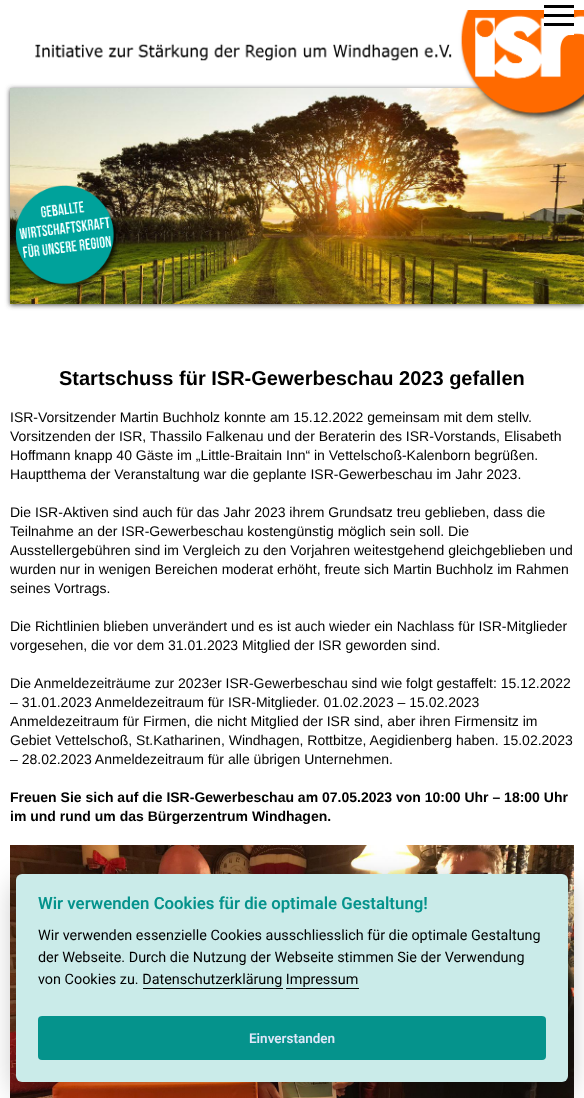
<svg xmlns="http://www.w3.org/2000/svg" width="584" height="1098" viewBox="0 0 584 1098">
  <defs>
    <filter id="blur1" x="-50%" y="-200%" width="200%" height="500%"><feGaussianBlur stdDeviation="2.5"/></filter>
    <filter id="blur2" x="-50%" y="-200%" width="200%" height="500%"><feGaussianBlur stdDeviation="15"/></filter>
  </defs>
  <rect width="100%" height="100%" fill="#ffffff"/>
  <rect x="10" y="89" width="574" height="216" fill="#4a4a4a" filter="url(#blur1)"/>
  <image x="10" y="88" width="574" height="216" href="img2.png"/>
  <image x="35" y="10" width="549" height="111" href="img1.png"/>
  <rect x="544" y="10" width="30" height="25" fill="#ffffff"/>
  <rect x="544" y="5" width="30" height="3" fill="#000000"/>
  <rect x="544" y="14" width="30" height="3" fill="#000000"/>
  <rect x="544" y="23" width="30" height="3" fill="#000000"/>
  <image x="15" y="185" width="104" height="105" href="img3.png"/>
  <text x="59" y="385" font-family="Liberation Sans" font-size="20" font-weight="bold" fill="#000000">Startschuss für ISR-Gewerbeschau 2023 gefallen</text>
  <text x="10" y="422" font-family="Liberation Sans" font-size="14" fill="#000000">ISR-Vorsitzender Martin Buchholz konnte am 15.12.2022 gemeinsam mit dem stellv.</text>
  <text x="10" y="441" font-family="Liberation Sans" font-size="14" fill="#000000">Vorsitzenden der ISR, Thassilo Falkenau und der Beraterin des ISR-Vorstands, Elisabeth</text>
  <text x="10" y="460" font-family="Liberation Sans" font-size="14" fill="#000000">Hoffmann knapp 40 Gäste im „Little-Braitain Inn“ in Vettelschoß-Kalenborn begrüßen.</text>
  <text x="10" y="479" font-family="Liberation Sans" font-size="14" fill="#000000">Hauptthema der Veranstaltung war die geplante ISR-Gewerbeschau im Jahr 2023.</text>
  <text x="10" y="517" font-family="Liberation Sans" font-size="14" fill="#000000">Die ISR-Aktiven sind auch für das Jahr 2023 ihrem Grundsatz treu geblieben, dass die</text>
  <text x="10" y="536" font-family="Liberation Sans" font-size="14" fill="#000000">Teilnahme an der ISR-Gewerbeschau kostengünstig möglich sein soll. Die</text>
  <text x="10" y="555" font-family="Liberation Sans" font-size="14" fill="#000000">Ausstellergebühren sind im Vergleich zu den Vorjahren weitestgehend gleichgeblieben und</text>
  <text x="10" y="574" font-family="Liberation Sans" font-size="14" fill="#000000">wurden nur in wenigen Bereichen moderat erhöht, freute sich Martin Buchholz im Rahmen</text>
  <text x="10" y="593" font-family="Liberation Sans" font-size="14" fill="#000000">seines Vortrags.</text>
  <text x="10" y="631" font-family="Liberation Sans" font-size="14" fill="#000000">Die Richtlinien blieben unverändert und es ist auch wieder ein Nachlass für ISR-Mitglieder</text>
  <text x="10" y="650" font-family="Liberation Sans" font-size="14" fill="#000000">vorgesehen, die vor dem 31.01.2023 Mitglied der ISR geworden sind.</text>
  <text x="10" y="688" font-family="Liberation Sans" font-size="14" fill="#000000">Die Anmeldezeiträume zur 2023er ISR-Gewerbeschau sind wie folgt gestaffelt: 15.12.2022</text>
  <text x="10" y="707" font-family="Liberation Sans" font-size="14" fill="#000000">– 31.01.2023 Anmeldezeitraum für ISR-Mitglieder. 01.02.2023 – 15.02.2023</text>
  <text x="10" y="726" font-family="Liberation Sans" font-size="14" fill="#000000">Anmeldezeitraum für Firmen, die nicht Mitglied der ISR sind, aber ihren Firmensitz im</text>
  <text x="10" y="745" font-family="Liberation Sans" font-size="14" fill="#000000">Gebiet Vettelschoß, St.Katharinen, Windhagen, Rottbitze, Aegidienberg haben. 15.02.2023</text>
  <text x="10" y="764" font-family="Liberation Sans" font-size="14" fill="#000000">– 28.02.2023 Anmeldezeitraum für alle übrigen Unternehmen.</text>
  <text x="10" y="802" font-family="Liberation Sans" font-size="14" font-weight="bold" fill="#000000">Freuen Sie sich auf die ISR-Gewerbeschau am 07.05.2023 von 10:00 Uhr – 18:00 Uhr</text>
  <text x="10" y="821" font-family="Liberation Sans" font-size="14" font-weight="bold" fill="#000000">im und rund um das Bürgerzentrum Windhagen.</text>
  <image x="10" y="845" width="564" height="253" href="img4.png"/>
  <rect x="16" y="884" width="552" height="208" rx="6" fill="#020203" fill-opacity="0.28" filter="url(#blur2)"/>
  <rect x="16" y="874" width="552" height="208" rx="6" fill="#caebe9"/>
  <text x="38" y="909" font-family="Roboto" font-size="16.8" font-weight="600" fill="#05938c">Wir verwenden Cookies für die optimale Gestaltung!</text>
  <text x="38" y="940" font-family="Roboto" font-size="14.4" fill="#000000">Wir verwenden essenzielle Cookies ausschliesslich für die optimale Gestaltung</text>
  <text x="38" y="962" font-family="Roboto" font-size="14.4" fill="#000000">der Webseite. Durch die Nutzung der Webseite stimmen Sie der Verwendung</text>
  <text x="38" y="984" font-family="Roboto" font-size="14.4" fill="#000000">von Cookies zu. Datenschutzerklärung Impressum</text>
  <rect x="143" y="988" width="140" height="1" fill="#000000"/>
  <rect x="286" y="988" width="73" height="1" fill="#000000"/>
  <rect x="38" y="1016" width="508" height="44" rx="4" fill="#05938c"/>
  <text x="249" y="1043" font-family="Roboto" font-size="13.5" font-weight="600" fill="#dfe7f9">Einverstanden</text>
</svg>
